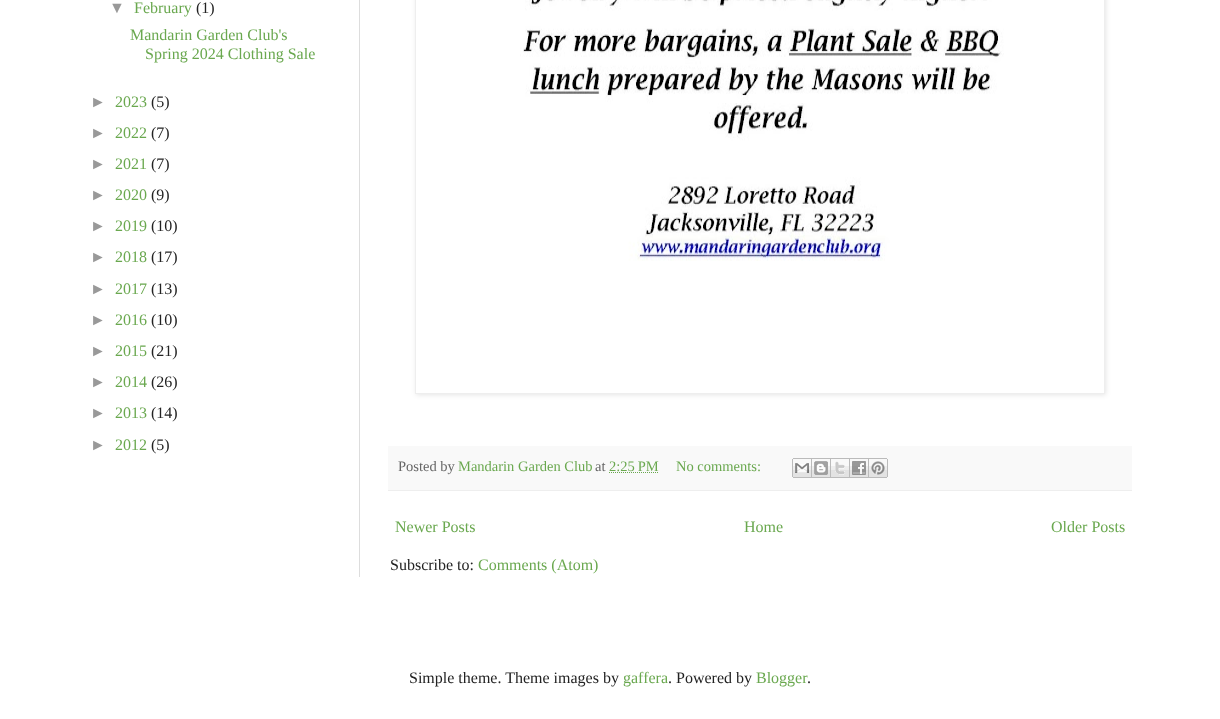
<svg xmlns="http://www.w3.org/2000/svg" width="1220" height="719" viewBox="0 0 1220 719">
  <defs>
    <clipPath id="clip1"><path d="M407 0H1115V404H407ZM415-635H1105V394H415Z" clip-rule="evenodd"/></clipPath>
    <filter id="blur1" x="-50%" y="-200%" width="200%" height="500%"><feGaussianBlur stdDeviation="2.5"/></filter>
  </defs>
  <rect width="100%" height="100%" fill="#ffffff"/>
  <rect x="359" y="0" width="1" height="577" fill="#dddddd"/>
  <text x="109" y="13" font-family="Liberation Sans" font-size="16" fill="#999999">▼</text>
  <text x="134" y="13" font-family="Liberation Serif" font-size="16" fill="#6aa84f">February</text>
  <text x="196" y="13" font-family="Liberation Serif" font-size="16" fill="#222222">(1)</text>
  <text x="130" y="40" font-family="Liberation Serif" font-size="16" fill="#6aa84f">Mandarin Garden Club's</text>
  <text x="145" y="59" font-family="Liberation Serif" font-size="16" fill="#6aa84f">Spring 2024 Clothing Sale</text>
  <text x="90" y="107" font-family="Liberation Sans" font-size="16" fill="#999999">►</text>
  <text x="115" y="107" font-family="Liberation Serif" font-size="16" fill="#6aa84f">2023</text>
  <text x="151" y="107" font-family="Liberation Serif" font-size="16" fill="#222222">(5)</text>
  <text x="90" y="138" font-family="Liberation Sans" font-size="16" fill="#999999">►</text>
  <text x="115" y="138" font-family="Liberation Serif" font-size="16" fill="#6aa84f">2022</text>
  <text x="151" y="138" font-family="Liberation Serif" font-size="16" fill="#222222">(7)</text>
  <text x="90" y="169" font-family="Liberation Sans" font-size="16" fill="#999999">►</text>
  <text x="115" y="169" font-family="Liberation Serif" font-size="16" fill="#6aa84f">2021</text>
  <text x="151" y="169" font-family="Liberation Serif" font-size="16" fill="#222222">(7)</text>
  <text x="90" y="200" font-family="Liberation Sans" font-size="16" fill="#999999">►</text>
  <text x="115" y="200" font-family="Liberation Serif" font-size="16" fill="#6aa84f">2020</text>
  <text x="151" y="200" font-family="Liberation Serif" font-size="16" fill="#222222">(9)</text>
  <text x="90" y="231" font-family="Liberation Sans" font-size="16" fill="#999999">►</text>
  <text x="115" y="231" font-family="Liberation Serif" font-size="16" fill="#6aa84f">2019</text>
  <text x="151" y="231" font-family="Liberation Serif" font-size="16" fill="#222222">(10)</text>
  <text x="90" y="262" font-family="Liberation Sans" font-size="16" fill="#999999">►</text>
  <text x="115" y="262" font-family="Liberation Serif" font-size="16" fill="#6aa84f">2018</text>
  <text x="151" y="262" font-family="Liberation Serif" font-size="16" fill="#222222">(17)</text>
  <text x="90" y="294" font-family="Liberation Sans" font-size="16" fill="#999999">►</text>
  <text x="115" y="294" font-family="Liberation Serif" font-size="16" fill="#6aa84f">2017</text>
  <text x="151" y="294" font-family="Liberation Serif" font-size="16" fill="#222222">(13)</text>
  <text x="90" y="325" font-family="Liberation Sans" font-size="16" fill="#999999">►</text>
  <text x="115" y="325" font-family="Liberation Serif" font-size="16" fill="#6aa84f">2016</text>
  <text x="151" y="325" font-family="Liberation Serif" font-size="16" fill="#222222">(10)</text>
  <text x="90" y="356" font-family="Liberation Sans" font-size="16" fill="#999999">►</text>
  <text x="115" y="356" font-family="Liberation Serif" font-size="16" fill="#6aa84f">2015</text>
  <text x="151" y="356" font-family="Liberation Serif" font-size="16" fill="#222222">(21)</text>
  <text x="90" y="387" font-family="Liberation Sans" font-size="16" fill="#999999">►</text>
  <text x="115" y="387" font-family="Liberation Serif" font-size="16" fill="#6aa84f">2014</text>
  <text x="151" y="387" font-family="Liberation Serif" font-size="16" fill="#222222">(26)</text>
  <text x="90" y="418" font-family="Liberation Sans" font-size="16" fill="#999999">►</text>
  <text x="115" y="418" font-family="Liberation Serif" font-size="16" fill="#6aa84f">2013</text>
  <text x="151" y="418" font-family="Liberation Serif" font-size="16" fill="#222222">(14)</text>
  <text x="90" y="450" font-family="Liberation Sans" font-size="16" fill="#999999">►</text>
  <text x="115" y="450" font-family="Liberation Serif" font-size="16" fill="#6aa84f">2012</text>
  <text x="151" y="450" font-family="Liberation Serif" font-size="16" fill="#222222">(5)</text>
  <g clip-path="url(#clip1)">
    <rect x="416" y="-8" width="690" height="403" fill="#000000" fill-opacity="0.1" filter="url(#blur1)"/>
  </g>
  <rect x="415.5" y="-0.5" width="689" height="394" fill="none" stroke="#eeeeee"/>
  <image x="520" y="0" width="484" height="261" href="img1.png"/>
  <rect x="388" y="446" width="744" height="44" fill="#f9f9f9"/>
  <rect x="388" y="490" width="744" height="1" fill="#eeeeee"/>
  <text x="398" y="471" font-family="Liberation Serif" font-size="14.5" fill="#666666">Posted by</text>
  <text x="458" y="471" font-family="Liberation Serif" font-size="14.5" fill="#6aa84f">Mandarin Garden Club</text>
  <text x="595" y="471" font-family="Liberation Serif" font-size="14.5" fill="#666666">at</text>
  <text x="609" y="471" font-family="Liberation Serif" font-size="14.5" fill="#6aa84f">2:25 PM</text>
  <path d="M609 472.5H658.5" fill="none" stroke="#6aa84f" stroke-dasharray="1 1"/>
  <text x="676" y="471" font-family="Liberation Serif" font-size="14.5" fill="#6aa84f">No comments:</text>
  <image x="792" y="458" width="20" height="20" href="img2.png"/>
  <image x="812" y="458" width="19" height="20" href="img3.png"/>
  <image x="831" y="458" width="19" height="20" href="img4.png"/>
  <image x="850" y="458" width="19" height="20" href="img5.png"/>
  <image x="869" y="458" width="19" height="20" href="img6.png"/>
  <text x="395" y="532" font-family="Liberation Serif" font-size="16" fill="#6aa84f">Newer Posts</text>
  <text x="744" y="532" font-family="Liberation Serif" font-size="16" fill="#6aa84f">Home</text>
  <text x="1051" y="532" font-family="Liberation Serif" font-size="16" fill="#6aa84f">Older Posts</text>
  <text x="390" y="570" font-family="Liberation Serif" font-size="16" fill="#222222">Subscribe to:</text>
  <text x="478" y="570" font-family="Liberation Serif" font-size="16" fill="#6aa84f">Comments (Atom)</text>
  <text x="409" y="683" font-family="Liberation Serif" font-size="16" fill="#222222">Simple theme. Theme images by</text>
  <text x="623" y="683" font-family="Liberation Serif" font-size="16" fill="#6aa84f">gaffera</text>
  <text x="668" y="683" font-family="Liberation Serif" font-size="16" fill="#222222">. Powered by</text>
  <text x="756" y="683" font-family="Liberation Serif" font-size="16" fill="#6aa84f">Blogger</text>
  <text x="807" y="683" font-family="Liberation Serif" font-size="16" fill="#222222">.</text>
</svg>
